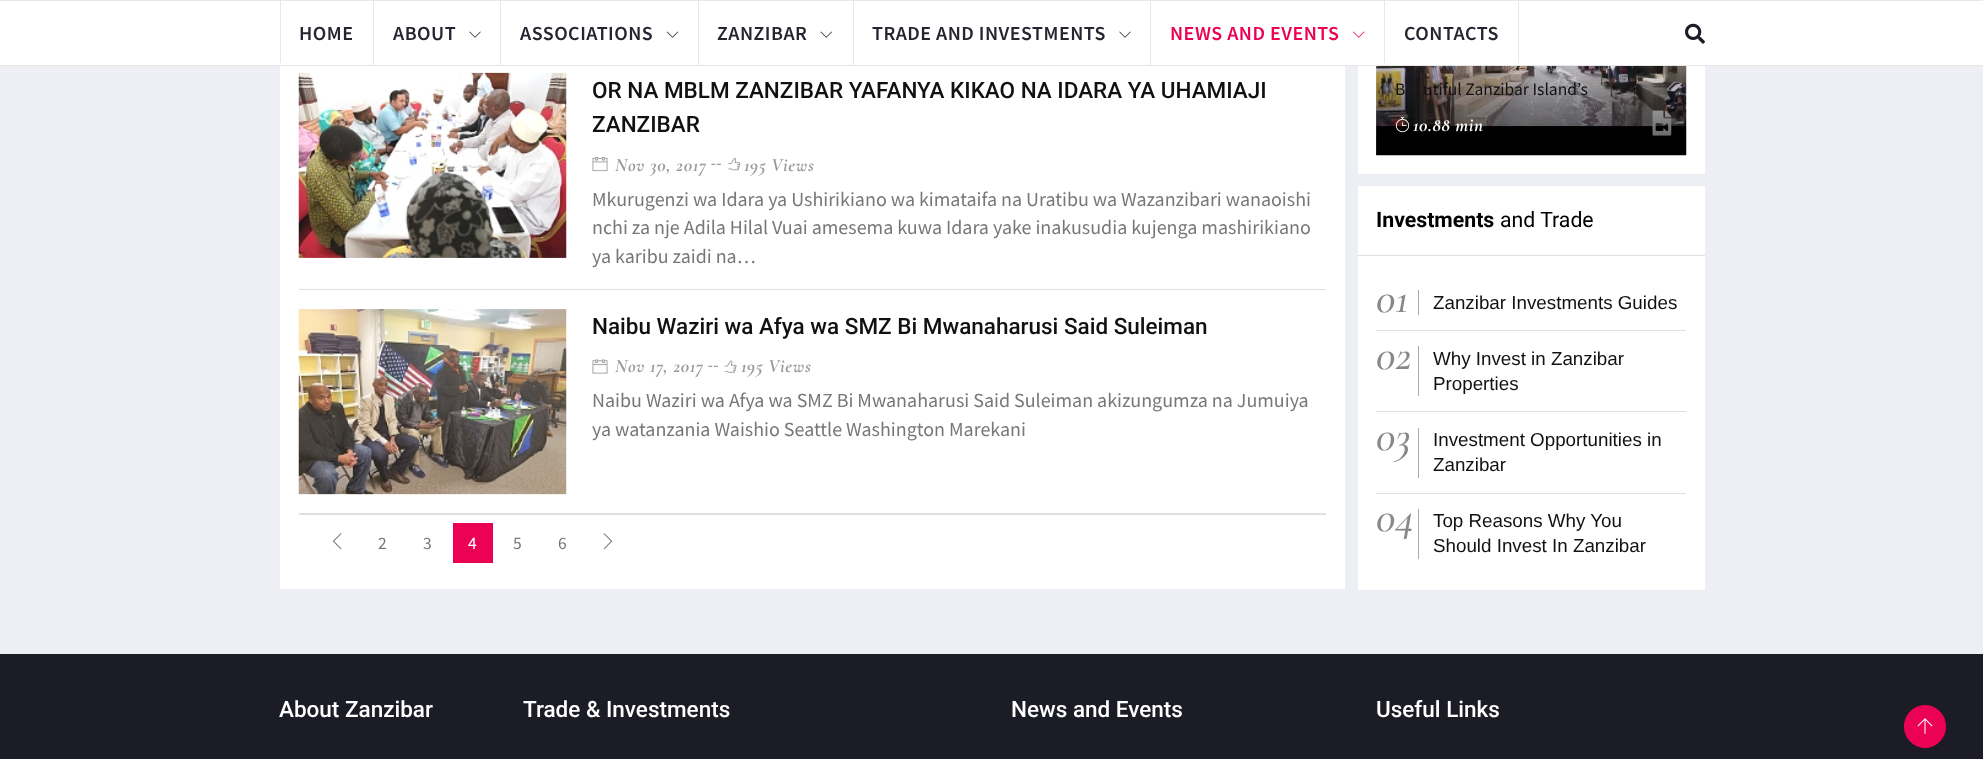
<svg xmlns="http://www.w3.org/2000/svg" width="1983" height="759" viewBox="0 0 1983 759">
  <defs>
    <linearGradient id="g1" gradientUnits="userSpaceOnUse" x1="1531" y1="57" x2="1531" y2="155"><stop offset="0" stop-color="#000000" stop-opacity="0"/><stop offset="0.5" stop-color="#000000" stop-opacity="0.4"/><stop offset="1" stop-color="#000000" stop-opacity="0.7"/></linearGradient>
  </defs>
  <rect width="100%" height="100%" fill="#edeff4"/>
  <rect x="0" y="1" width="1983" height="64" fill="#ffffff"/>
  <rect x="0" y="0" width="1983" height="1" fill="#e7e7e7"/>
  <rect x="0" y="65" width="1983" height="1" fill="#e7e7e7"/>
  <rect x="280" y="1" width="1" height="62" fill="#e7e7e7"/>
  <text x="299" y="40" font-family="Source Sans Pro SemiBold" font-size="20" font-weight="600" letter-spacing="0.5" fill="#24252f">HOME</text>
  <rect x="373" y="1" width="1" height="64" fill="#e7e7e7"/>
  <text x="393" y="40" font-family="Source Sans Pro SemiBold" font-size="20" font-weight="600" letter-spacing="0.5" fill="#24252f">ABOUT</text>
  <image x="469" y="31" width="12" height="7" href="img1.png"/>
  <rect x="500" y="1" width="1" height="64" fill="#e7e7e7"/>
  <text x="520" y="40" font-family="Source Sans Pro SemiBold" font-size="20" font-weight="600" letter-spacing="0.5" fill="#24252f">ASSOCIATIONS</text>
  <image x="666" y="31" width="13" height="7" href="img2.png"/>
  <rect x="698" y="1" width="1" height="64" fill="#e7e7e7"/>
  <text x="717" y="40" font-family="Source Sans Pro SemiBold" font-size="20" font-weight="600" letter-spacing="0.5" fill="#24252f">ZANZIBAR</text>
  <image x="820" y="31" width="12" height="7" href="img3.png"/>
  <rect x="853" y="1" width="1" height="64" fill="#e7e7e7"/>
  <text x="872" y="40" font-family="Source Sans Pro SemiBold" font-size="20" font-weight="600" letter-spacing="0.5" fill="#24252f">TRADE AND INVESTMENTS</text>
  <image x="1119" y="31" width="12" height="7" href="img1.png"/>
  <rect x="1150" y="1" width="1" height="64" fill="#e7e7e7"/>
  <text x="1170" y="40" font-family="Source Sans Pro SemiBold" font-size="20" font-weight="600" letter-spacing="0.5" fill="#eb0254">NEWS AND EVENTS</text>
  <image x="1353" y="31" width="12" height="7" href="img4.png"/>
  <rect x="1518" y="1" width="1" height="62" fill="#e7e7e7"/>
  <rect x="1384" y="1" width="1" height="62" fill="#e7e7e7"/>
  <text x="1404" y="40" font-family="Source Sans Pro SemiBold" font-size="20" font-weight="600" letter-spacing="0.5" fill="#24252f">CONTACTS</text>
  <image x="1685" y="23" width="20" height="21" href="img5.png"/>
  <rect x="280" y="66" width="1065" height="523" fill="#ffffff"/>
  <rect x="299" y="289" width="1027" height="1" fill="#e0e0e0"/>
  <image x="298" y="72" width="269" height="186" href="img6.png"/>
  <text x="592" y="98" font-family="Roboto" font-size="22.5" font-weight="500" fill="#111111">OR NA MBLM ZANZIBAR YAFANYA KIKAO NA IDARA YA UHAMIAJI</text>
  <text x="592" y="132" font-family="Roboto" font-size="22.5" font-weight="500" fill="#111111">ZANZIBAR</text>
  <image x="592" y="157" width="16" height="15" href="img7.png"/>
  <text x="615" y="171" font-family="Cormorant Garamond" font-size="18.75" font-weight="bold" font-style="italic" letter-spacing="0.6" fill="#9a9a9a">Nov 30, 2017</text>
  <text x="711" y="168" font-family="Liberation Serif" font-size="15" font-weight="bold" font-style="italic" letter-spacing="0.6" fill="#9a9a9a">--</text>
  <image x="728" y="158" width="13" height="13" href="img8.png"/>
  <text x="744" y="171" font-family="Cormorant Garamond" font-size="18.75" font-weight="bold" font-style="italic" letter-spacing="0.6" fill="#9a9a9a">195 Views</text>
  <text x="592" y="206" font-family="Source Sans Pro" font-size="20" fill="#777777">Mkurugenzi wa Idara ya Ushirikiano wa kimataifa na Uratibu wa Wazanzibari wanaoishi</text>
  <text x="592" y="234" font-family="Source Sans Pro" font-size="20" fill="#777777">nchi za nje Adila Hilal Vuai amesema kuwa Idara yake inakusudia kujenga mashirikiano</text>
  <text x="592" y="263" font-family="Source Sans Pro" font-size="20" fill="#777777">ya karibu zaidi na…</text>
  <rect x="299" y="513" width="1027" height="2" fill="#e0e0e0"/>
  <image x="298" y="309" width="269" height="186" href="img9.png"/>
  <text x="592" y="334" font-family="Roboto" font-size="22.5" font-weight="500" fill="#111111">Naibu Waziri wa Afya wa SMZ Bi Mwanaharusi Said Suleiman</text>
  <image x="592" y="359" width="16" height="15" href="img10.png"/>
  <text x="615" y="372" font-family="Cormorant Garamond" font-size="18.75" font-weight="bold" font-style="italic" letter-spacing="0.6" fill="#9a9a9a">Nov 17, 2017</text>
  <text x="708" y="370" font-family="Liberation Serif" font-size="15" font-weight="bold" font-style="italic" letter-spacing="0.6" fill="#9a9a9a">--</text>
  <image x="724" y="360" width="13" height="13" href="img11.png"/>
  <text x="741" y="372" font-family="Cormorant Garamond" font-size="18.75" font-weight="bold" font-style="italic" letter-spacing="0.6" fill="#9a9a9a">195 Views</text>
  <text x="592" y="407" font-family="Source Sans Pro" font-size="20" fill="#777777">Naibu Waziri wa Afya wa SMZ Bi Mwanaharusi Said Suleiman akizungumza na Jumuiya</text>
  <text x="592" y="436" font-family="Source Sans Pro" font-size="20" fill="#777777">ya watanzania Waishio Seattle Washington Marekani</text>
  <image x="332" y="533" width="10" height="17" href="img12.png"/>
  <text x="378" y="549" font-family="Source Sans Pro" font-size="17.5" fill="#777777">2</text>
  <text x="423" y="549" font-family="Source Sans Pro" font-size="17.5" fill="#777777">3</text>
  <rect x="453" y="523" width="40" height="40" fill="#eb0254"/>
  <text x="468" y="549" font-family="Source Sans Pro" font-size="17.5" fill="#ffffff">4</text>
  <text x="513" y="549" font-family="Source Sans Pro" font-size="17.5" fill="#777777">5</text>
  <text x="558" y="549" font-family="Source Sans Pro" font-size="17.5" fill="#777777">6</text>
  <image x="603" y="533" width="10" height="17" href="img13.png"/>
  <rect x="1358" y="66" width="347" height="108" fill="#ffffff"/>
  <image x="1376" y="66" width="311" height="90" href="img14.png"/>
  <image x="1652" y="110" width="20" height="26" href="img16.png"/>
  <rect x="1376" y="66" width="310" height="89" fill="url(#g1)"/>
  <text x="1395" y="95" font-family="Source Sans Pro" font-size="17.5" fill="#111111">B</text>
  <text x="1423" y="95" font-family="Source Sans Pro" font-size="17.5" fill="#111111">utiful Zanzibar Island’s</text>
  <image x="1395" y="117" width="15" height="16" href="img15.png"/>
  <text x="1413" y="131" font-family="Cormorant Garamond" font-size="18.75" font-weight="bold" font-style="italic" letter-spacing="0.6" fill="#ffffff">10.88 min</text>
  <rect x="1358" y="186" width="347" height="404" fill="#ffffff"/>
  <rect x="1358" y="255" width="347" height="1" fill="#e0e0e0"/>
  <text x="1376" y="227" font-family="Roboto" font-size="21.25" font-weight="bold" fill="#000000">Investments</text>
  <text x="1500" y="227" font-family="Roboto" font-size="21.25" fill="#000000">and Trade</text>
  <rect x="1376" y="330" width="310" height="1" fill="#e0e0e0"/>
  <text x="1376" y="312" font-family="Cormorant Garamond" font-size="44" font-weight="500" font-style="italic" fill="#888888">01</text>
  <rect x="1418" y="290" width="1" height="25" fill="#aaaaaa"/>
  <text x="1433" y="309" font-family="Liberation Sans" font-size="18.8" fill="#111111">Zanzibar Investments Guides</text>
  <rect x="1376" y="411" width="310" height="1" fill="#e0e0e0"/>
  <text x="1376" y="369" font-family="Cormorant Garamond" font-size="44" font-weight="500" font-style="italic" fill="#888888">02</text>
  <rect x="1418" y="346" width="1" height="50" fill="#aaaaaa"/>
  <text x="1433" y="365" font-family="Liberation Sans" font-size="18.8" fill="#111111">Why Invest in Zanzibar</text>
  <text x="1433" y="390" font-family="Liberation Sans" font-size="18.8" fill="#111111">Properties</text>
  <rect x="1376" y="493" width="310" height="1" fill="#e0e0e0"/>
  <text x="1376" y="450" font-family="Cormorant Garamond" font-size="44" font-weight="500" font-style="italic" fill="#888888">03</text>
  <rect x="1418" y="428" width="1" height="50" fill="#aaaaaa"/>
  <text x="1433" y="446" font-family="Liberation Sans" font-size="18.8" fill="#111111">Investment Opportunities in</text>
  <text x="1433" y="471" font-family="Liberation Sans" font-size="18.8" fill="#111111">Zanzibar</text>
  <text x="1376" y="531" font-family="Cormorant Garamond" font-size="44" font-weight="500" font-style="italic" fill="#888888">04</text>
  <rect x="1418" y="509" width="1" height="50" fill="#aaaaaa"/>
  <text x="1433" y="527" font-family="Liberation Sans" font-size="18.8" fill="#111111">Top Reasons Why You</text>
  <text x="1433" y="552" font-family="Liberation Sans" font-size="18.8" fill="#111111">Should Invest In Zanzibar</text>
  <rect x="0" y="654" width="1983" height="105" fill="#1b1c26"/>
  <text x="279" y="717" font-family="Roboto" font-size="22.5" font-weight="500" fill="#ffffff">About Zanzibar</text>
  <text x="523" y="717" font-family="Roboto" font-size="22.5" font-weight="500" fill="#ffffff">Trade &amp; Investments</text>
  <text x="1011" y="717" font-family="Roboto" font-size="22.5" font-weight="500" fill="#ffffff">News and Events</text>
  <text x="1376" y="717" font-family="Roboto" font-size="22.5" font-weight="500" fill="#ffffff">Useful Links</text>
  <rect x="1904.5" y="705.5" width="41" height="42" rx="20.5" fill="#eb0254" stroke="#eb0254"/>
  <image x="1917" y="718" width="16" height="16" href="img17.png"/>
</svg>
